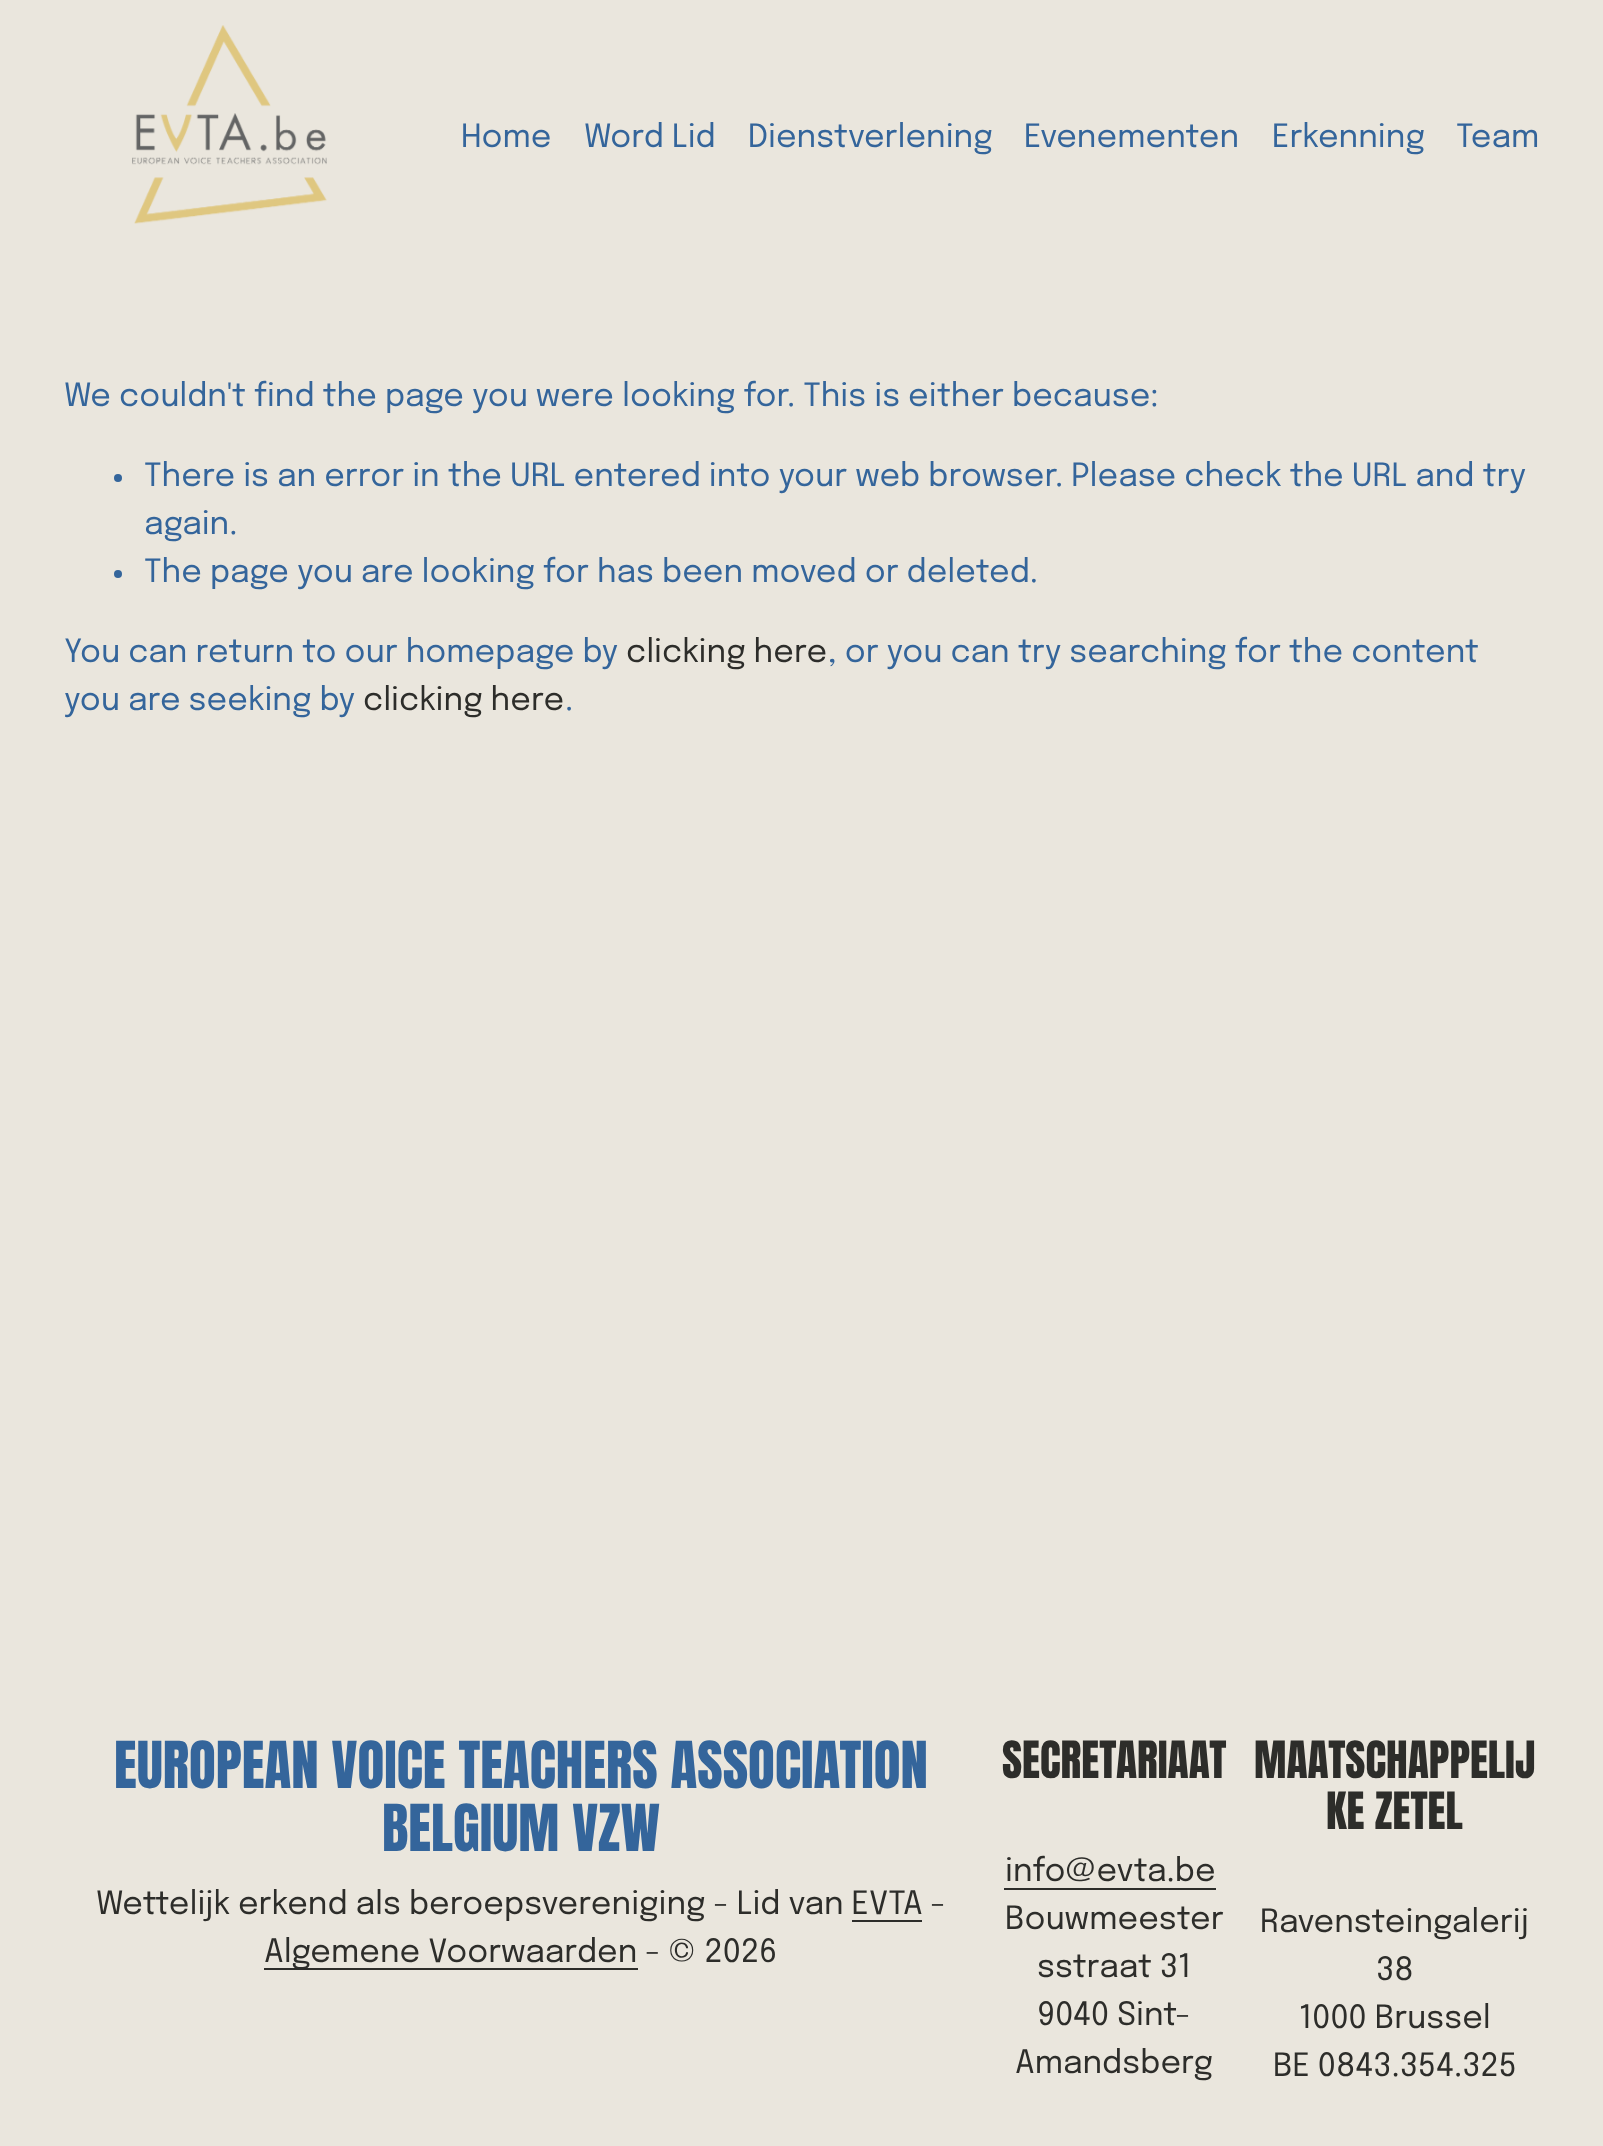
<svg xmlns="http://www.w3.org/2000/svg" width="1603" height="2146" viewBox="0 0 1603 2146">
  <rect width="100%" height="100%" fill="#eae6dd"/>
  <image x="132" y="25" width="195" height="199" href="img1.png"/>
  <text x="461" y="147" font-family="Epilogue" font-size="32" fill="#34659b">Home</text>
  <text x="584" y="147" font-family="Epilogue" font-size="32" fill="#34659b">Word Lid</text>
  <text x="748" y="147" font-family="Epilogue" font-size="32" fill="#34659b">Dienstverlening</text>
  <text x="1024" y="147" font-family="Epilogue" font-size="32" fill="#34659b">Evenementen</text>
  <text x="1272" y="147" font-family="Epilogue" font-size="32" fill="#34659b">Erkenning</text>
  <text x="1456" y="147" font-family="Epilogue" font-size="32" fill="#34659b">Team</text>
  <text x="64" y="406" font-family="Epilogue" font-size="32" fill="#34659b">We couldn't find the page you were looking for. This is either because:</text>
  <circle cx="118" cy="478" r="4" fill="#34659b"/>
  <text x="144" y="486" font-family="Epilogue" font-size="32" fill="#34659b">There is an error in the URL entered into your web browser. Please check the URL and try</text>
  <text x="144" y="534" font-family="Epilogue" font-size="32" fill="#34659b">again.</text>
  <circle cx="118" cy="574" r="4" fill="#34659b"/>
  <text x="144" y="582" font-family="Epilogue" font-size="32" fill="#34659b">The page you are looking for has been moved or deleted.</text>
  <text x="64" y="662" font-family="Epilogue" font-size="32" fill="#34659b">You can return to our homepage by</text>
  <text x="626" y="662" font-family="Epilogue" font-size="32" fill="#2d2d2a">clicking here</text>
  <text x="828" y="662" font-family="Epilogue" font-size="32" fill="#34659b">, or you can try searching for the content</text>
  <text x="64" y="710" font-family="Epilogue" font-size="32" fill="#34659b">you are seeking by</text>
  <text x="363" y="710" font-family="Epilogue" font-size="32" fill="#2d2d2a">clicking here</text>
  <text x="565" y="710" font-family="Epilogue" font-size="32" fill="#34659b">.</text>
  <text x="114" y="1788" font-family="Anton" font-size="55.1" fill="#34659b">EUROPEAN VOICE TEACHERS ASSOCIATION</text>
  <text x="382" y="1851" font-family="Anton" font-size="55.1" fill="#34659b">BELGIUM VZW</text>
  <text x="1002" y="1778" font-family="Anton" font-size="43.5" fill="#2d2d2a">SECRETARIAAT</text>
  <text x="1005" y="1881" font-family="Epilogue" font-size="32" fill="#2d2d2a">info@evta.be</text>
  <rect x="1004" y="1888" width="212" height="2" fill="#2d2d2a"/>
  <text x="1005" y="1929" font-family="Epilogue" font-size="32" fill="#2d2d2a">Bouwmeester</text>
  <text x="1037" y="1977" font-family="Epilogue" font-size="32" fill="#2d2d2a">sstraat 31</text>
  <text x="1037" y="2025" font-family="Epilogue" font-size="32" fill="#2d2d2a">9040 Sint-</text>
  <text x="1015" y="2073" font-family="Epilogue" font-size="32" fill="#2d2d2a">Amandsberg</text>
  <text x="1254" y="1778" font-family="Anton" font-size="43.5" fill="#2d2d2a">MAATSCHAPPELIJ</text>
  <text x="1326" y="1829" font-family="Anton" font-size="43.5" fill="#2d2d2a">KE ZETEL</text>
  <text x="1260" y="1932" font-family="Epilogue" font-size="32" fill="#2d2d2a">Ravensteingalerij</text>
  <text x="1376" y="1980" font-family="Epilogue" font-size="32" fill="#2d2d2a">38</text>
  <text x="1299" y="2028" font-family="Epilogue" font-size="32" fill="#2d2d2a">1000 Brussel</text>
  <text x="1273" y="2076" font-family="Epilogue" font-size="32" fill="#2d2d2a">BE 0843.354.325</text>
  <text x="96" y="1914" font-family="Epilogue" font-size="32" fill="#2d2d2a">Wettelijk erkend als beroepsvereniging - Lid van EVTA -</text>
  <rect x="852" y="1920" width="70" height="2" fill="#2d2d2a"/>
  <rect x="264" y="1968" width="374" height="2" fill="#2d2d2a"/>
  <text x="264" y="1962" font-family="Epilogue" font-size="32" fill="#2d2d2a">Algemene Voorwaarden - © 2026</text>
</svg>
